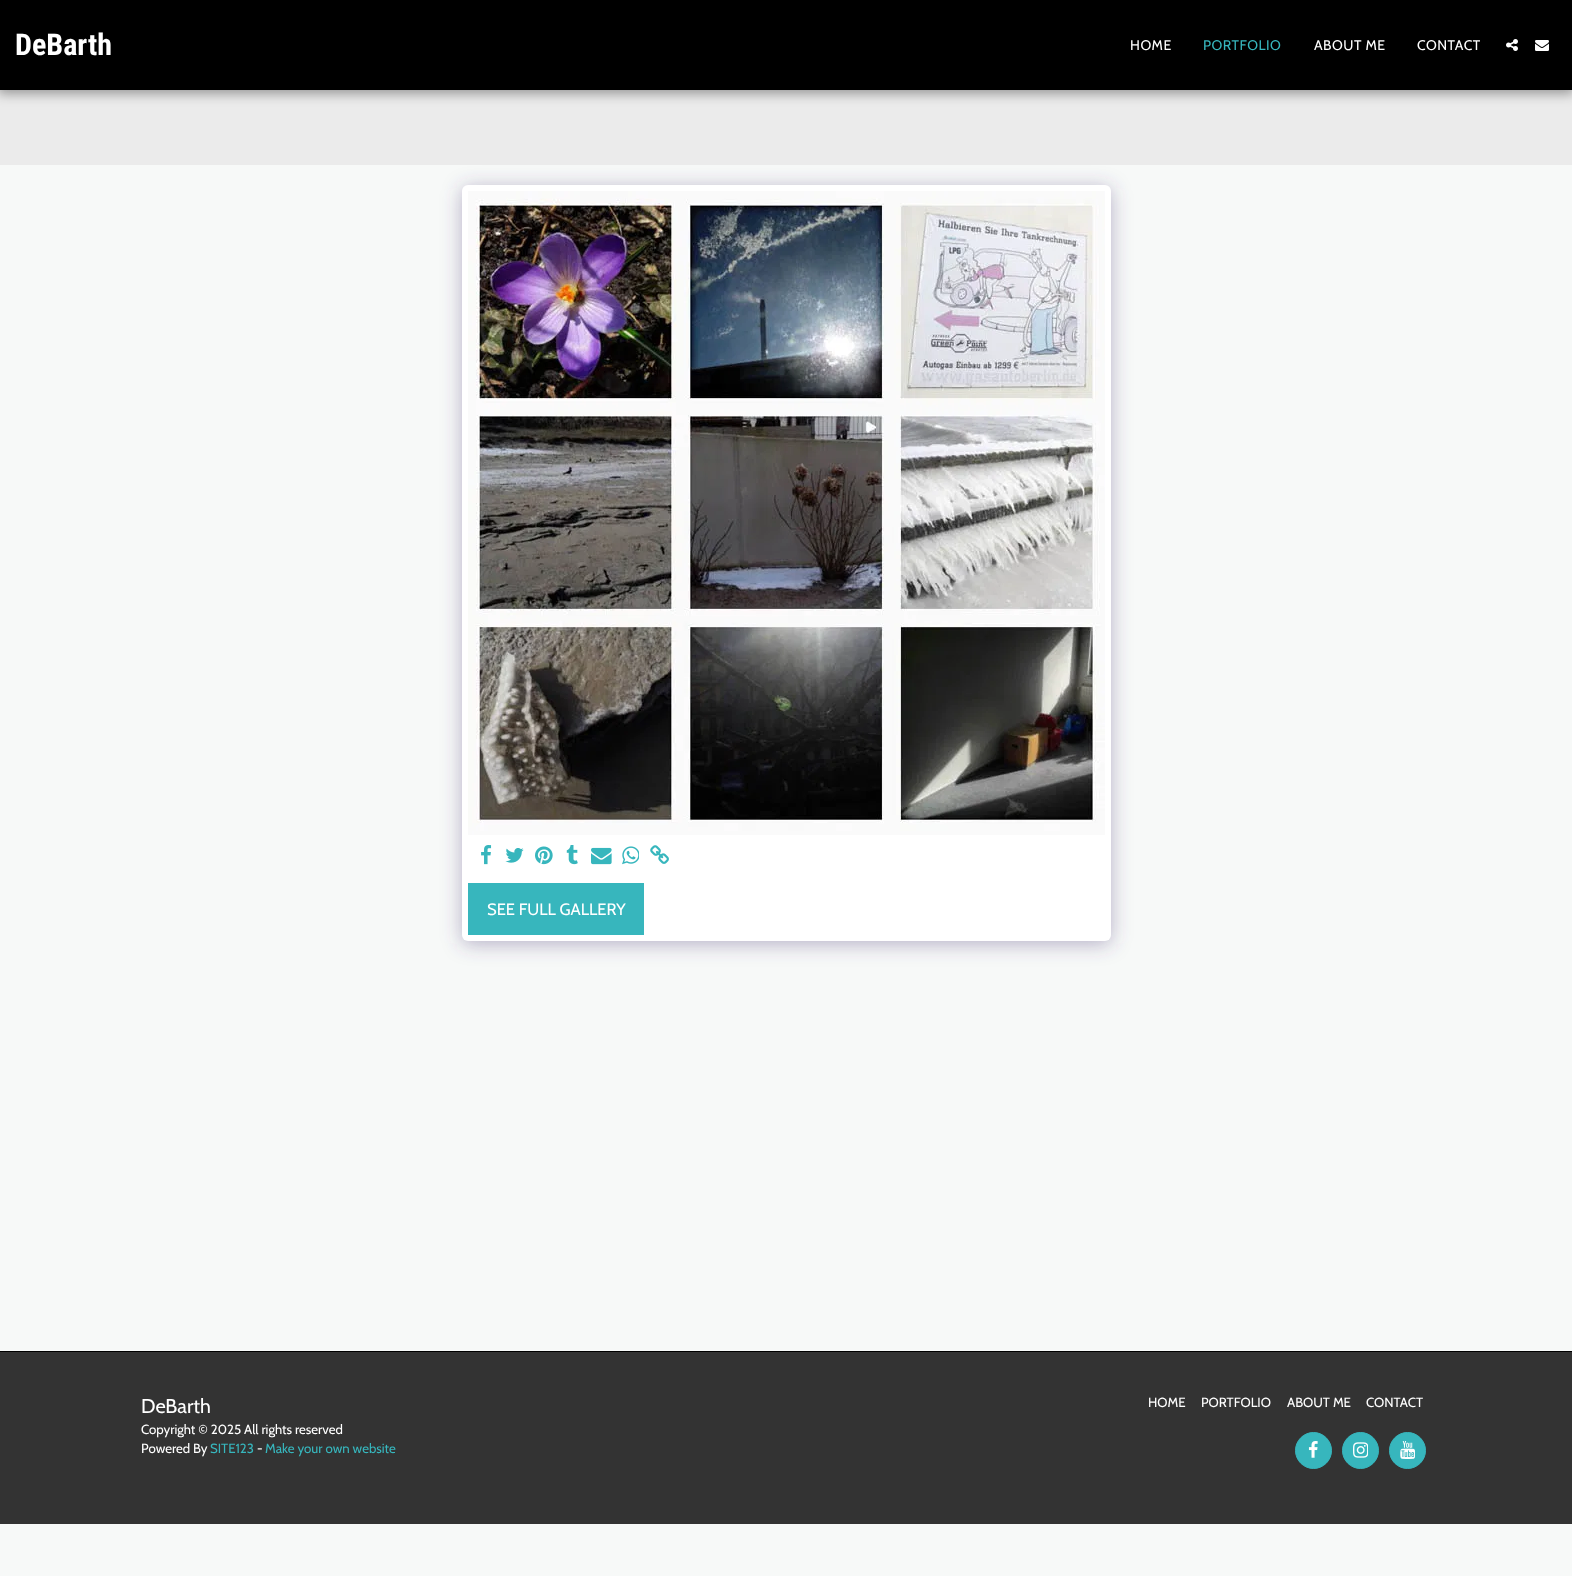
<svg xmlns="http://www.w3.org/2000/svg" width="1572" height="1576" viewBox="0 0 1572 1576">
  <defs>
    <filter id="blur1" x="-50%" y="-200%" width="200%" height="500%"><feGaussianBlur stdDeviation="6"/></filter>
    <filter id="blur2" x="-50%" y="-200%" width="200%" height="500%"><feGaussianBlur stdDeviation="10"/></filter>
  </defs>
  <rect width="100%" height="100%" fill="#f7f9f8"/>
  <rect x="0" y="90" width="1572" height="75" fill="#ebebeb"/>
  <rect x="-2" y="0" width="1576" height="94" fill="#000000" fill-opacity="0.35" filter="url(#blur1)"/>
  <rect x="0" y="0" width="1572" height="90" fill="#000000"/>
  <text x="15" y="55" font-family="Roboto Condensed" font-size="30" font-weight="bold" fill="#ffffff">DeBarth</text>
  <text x="1130" y="50" font-family="Cabin" font-size="14" letter-spacing="0.5" fill="#ffffff">HOME</text>
  <text x="1203" y="50" font-family="Cabin" font-size="14" letter-spacing="0.5" fill="#37b6bd">PORTFOLIO</text>
  <text x="1314" y="50" font-family="Cabin" font-size="14" letter-spacing="0.5" fill="#ffffff">ABOUT ME</text>
  <text x="1417" y="50" font-family="Cabin" font-size="14" letter-spacing="0.5" fill="#ffffff">CONTACT</text>
  <image x="1506" y="39" width="12" height="12" href="img1.png"/>
  <image x="1535" y="40" width="14" height="11" href="img2.png"/>
  <rect x="462" y="188" width="649" height="756" rx="6" fill="#4d3f7a" fill-opacity="0.4" filter="url(#blur2)"/>
  <rect x="462" y="185" width="649" height="756" rx="6" fill="#ffffff"/>
  <image x="468" y="191" width="637" height="644" href="img3.png"/>
  <image x="481" y="845" width="11" height="20" href="img4.png"/>
  <image x="505" y="848" width="19" height="15" href="img5.png"/>
  <image x="535" y="846" width="18" height="19" href="img6.png"/>
  <image x="566" y="845" width="12" height="20" href="img7.png"/>
  <image x="591" y="847" width="21" height="18" href="img8.png"/>
  <image x="622" y="846" width="17" height="19" href="img9.png"/>
  <image x="650" y="845" width="19" height="19" href="img10.png"/>
  <rect x="468" y="883" width="176" height="52" fill="#37b6bd"/>
  <text x="487" y="915" font-family="Cabin" font-size="16.5" fill="#ffffff">SEE FULL GALLERY</text>
  <rect x="0" y="1352" width="1572" height="172" fill="#333333"/>
  <rect x="0" y="1351" width="1572" height="1" fill="#000000"/>
  <text x="141" y="1413" font-family="Cabin" font-size="20" fill="#ffffff">DeBarth</text>
  <text x="141" y="1434" font-family="Cabin" font-size="13.25" fill="#ffffff">Copyright © 2025 All rights reserved</text>
  <text x="141" y="1453" font-family="Cabin" font-size="13.25" fill="#ffffff">Powered By</text>
  <text x="210" y="1453" font-family="Cabin" font-size="13.25" fill="#37b6bd">SITE123</text>
  <text x="257" y="1453" font-family="Cabin" font-size="13.25" fill="#ffffff">-</text>
  <text x="265" y="1453" font-family="Cabin" font-size="13.25" fill="#37b6bd">Make your own website</text>
  <text x="1148" y="1407" font-family="Cabin" font-size="13.25" fill="#ffffff">HOME</text>
  <text x="1201" y="1407" font-family="Cabin" font-size="13.25" fill="#ffffff">PORTFOLIO</text>
  <text x="1287" y="1407" font-family="Cabin" font-size="13.25" fill="#ffffff">ABOUT ME</text>
  <text x="1366" y="1407" font-family="Cabin" font-size="13.25" fill="#ffffff">CONTACT</text>
  <circle cx="1313.5" cy="1450.5" r="18" fill="#37b6bd" stroke="#37b6bd"/>
  <image x="1308" y="1441" width="10" height="17" href="img11.png"/>
  <circle cx="1360.5" cy="1450.5" r="18" fill="#37b6bd" stroke="#37b6bd"/>
  <image x="1353" y="1442" width="15" height="16" href="img12.png"/>
  <circle cx="1407.5" cy="1450.5" r="18" fill="#37b6bd" stroke="#37b6bd"/>
  <image x="1400" y="1441" width="15" height="18" href="img13.png"/>
</svg>
